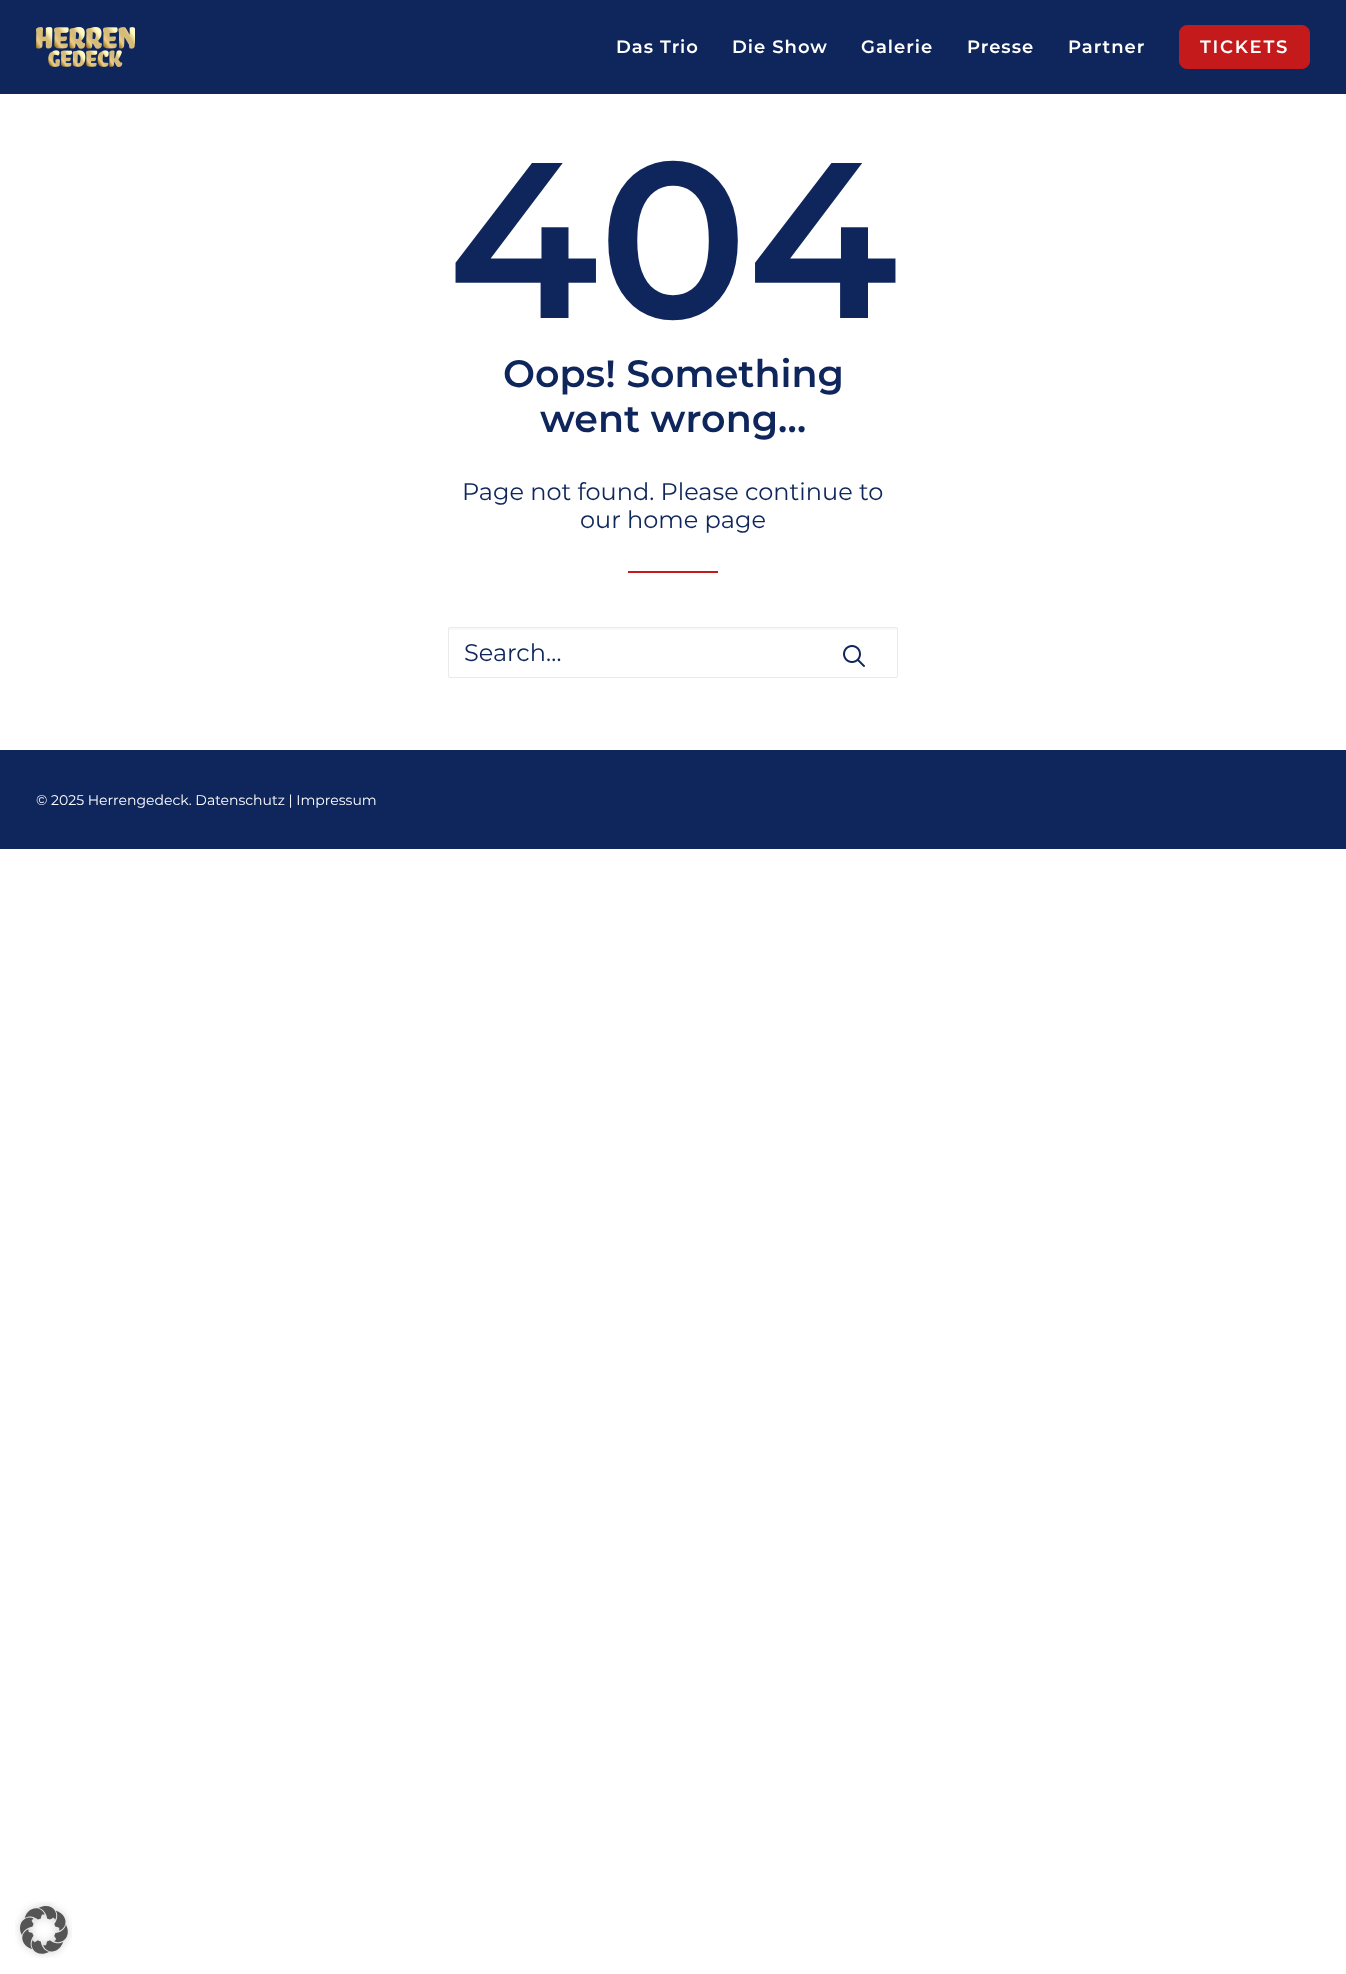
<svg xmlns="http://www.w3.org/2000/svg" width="1346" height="1974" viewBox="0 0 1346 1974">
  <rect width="100%" height="100%" fill="#ffffff"/>
  <rect x="0" y="0" width="1346" height="94" fill="#0f265c"/>
  <image x="36" y="27" width="99" height="40" href="img1.png"/>
  <text x="616" y="53" font-family="Montserrat" font-size="18" font-weight="100" letter-spacing="1" fill="#ffffff">Das Trio</text>
  <text x="732" y="53" font-family="Montserrat" font-size="18" font-weight="100" letter-spacing="1" fill="#ffffff">Die Show</text>
  <text x="861" y="53" font-family="Montserrat" font-size="18" font-weight="100" letter-spacing="1" fill="#ffffff">Galerie</text>
  <text x="967" y="53" font-family="Montserrat" font-size="18" font-weight="100" letter-spacing="1" fill="#ffffff">Presse</text>
  <text x="1068" y="53" font-family="Montserrat" font-size="18" font-weight="100" letter-spacing="1" fill="#ffffff">Partner</text>
  <rect x="1179.5" y="25.5" width="130" height="43" rx="7.5" fill="#c51a1b" stroke="#c51a1b"/>
  <text x="1200" y="53" font-family="Montserrat" font-size="18" font-weight="100" letter-spacing="1.75" fill="#ffffff">TICKETS</text>
  <text x="448" y="318" font-family="Montserrat" font-size="221.5" font-weight="100" fill="#0f265c">404</text>
  <text x="503" y="387" font-family="Montserrat" font-size="38" font-weight="100" fill="#0f265c">Oops! Something</text>
  <text x="540" y="432" font-family="Montserrat" font-size="38" font-weight="100" fill="#0f265c">went wrong…</text>
  <text x="462" y="500" font-family="'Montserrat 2'" font-size="24" font-weight="100" fill="#0f265c">Page not found. Please continue to</text>
  <text x="580" y="528" font-family="'Montserrat 2'" font-size="24" font-weight="100" fill="#0f265c">our home page</text>
  <rect x="628" y="571" width="90" height="2" fill="#c51a1b"/>
  <path d="M450 630H896C897 630 897 630 897 631C897 630 897 628 896 628H450H449V631C449 630 449 630 450 630Z" fill="#f9f9f9"/>
  <rect x="448.5" y="627.5" width="449" height="50" rx="1.5" fill="none" stroke="#eaeaea"/>
  <text x="464" y="661" font-family="'Montserrat 2'" font-size="24" font-weight="100" fill="#0f265c">Search…</text>
  <image x="843" y="645" width="22" height="22" href="img2.png"/>
  <rect x="0" y="750" width="1346" height="99" fill="#0f265c"/>
  <text x="36" y="805" font-family="'Montserrat 2'" font-size="14" font-weight="100" fill="#ffffff">© 2025 Herrengedeck. Datenschutz | Impressum</text>
  <image x="15" y="1901" width="57" height="57" href="img3.png"/>
</svg>
